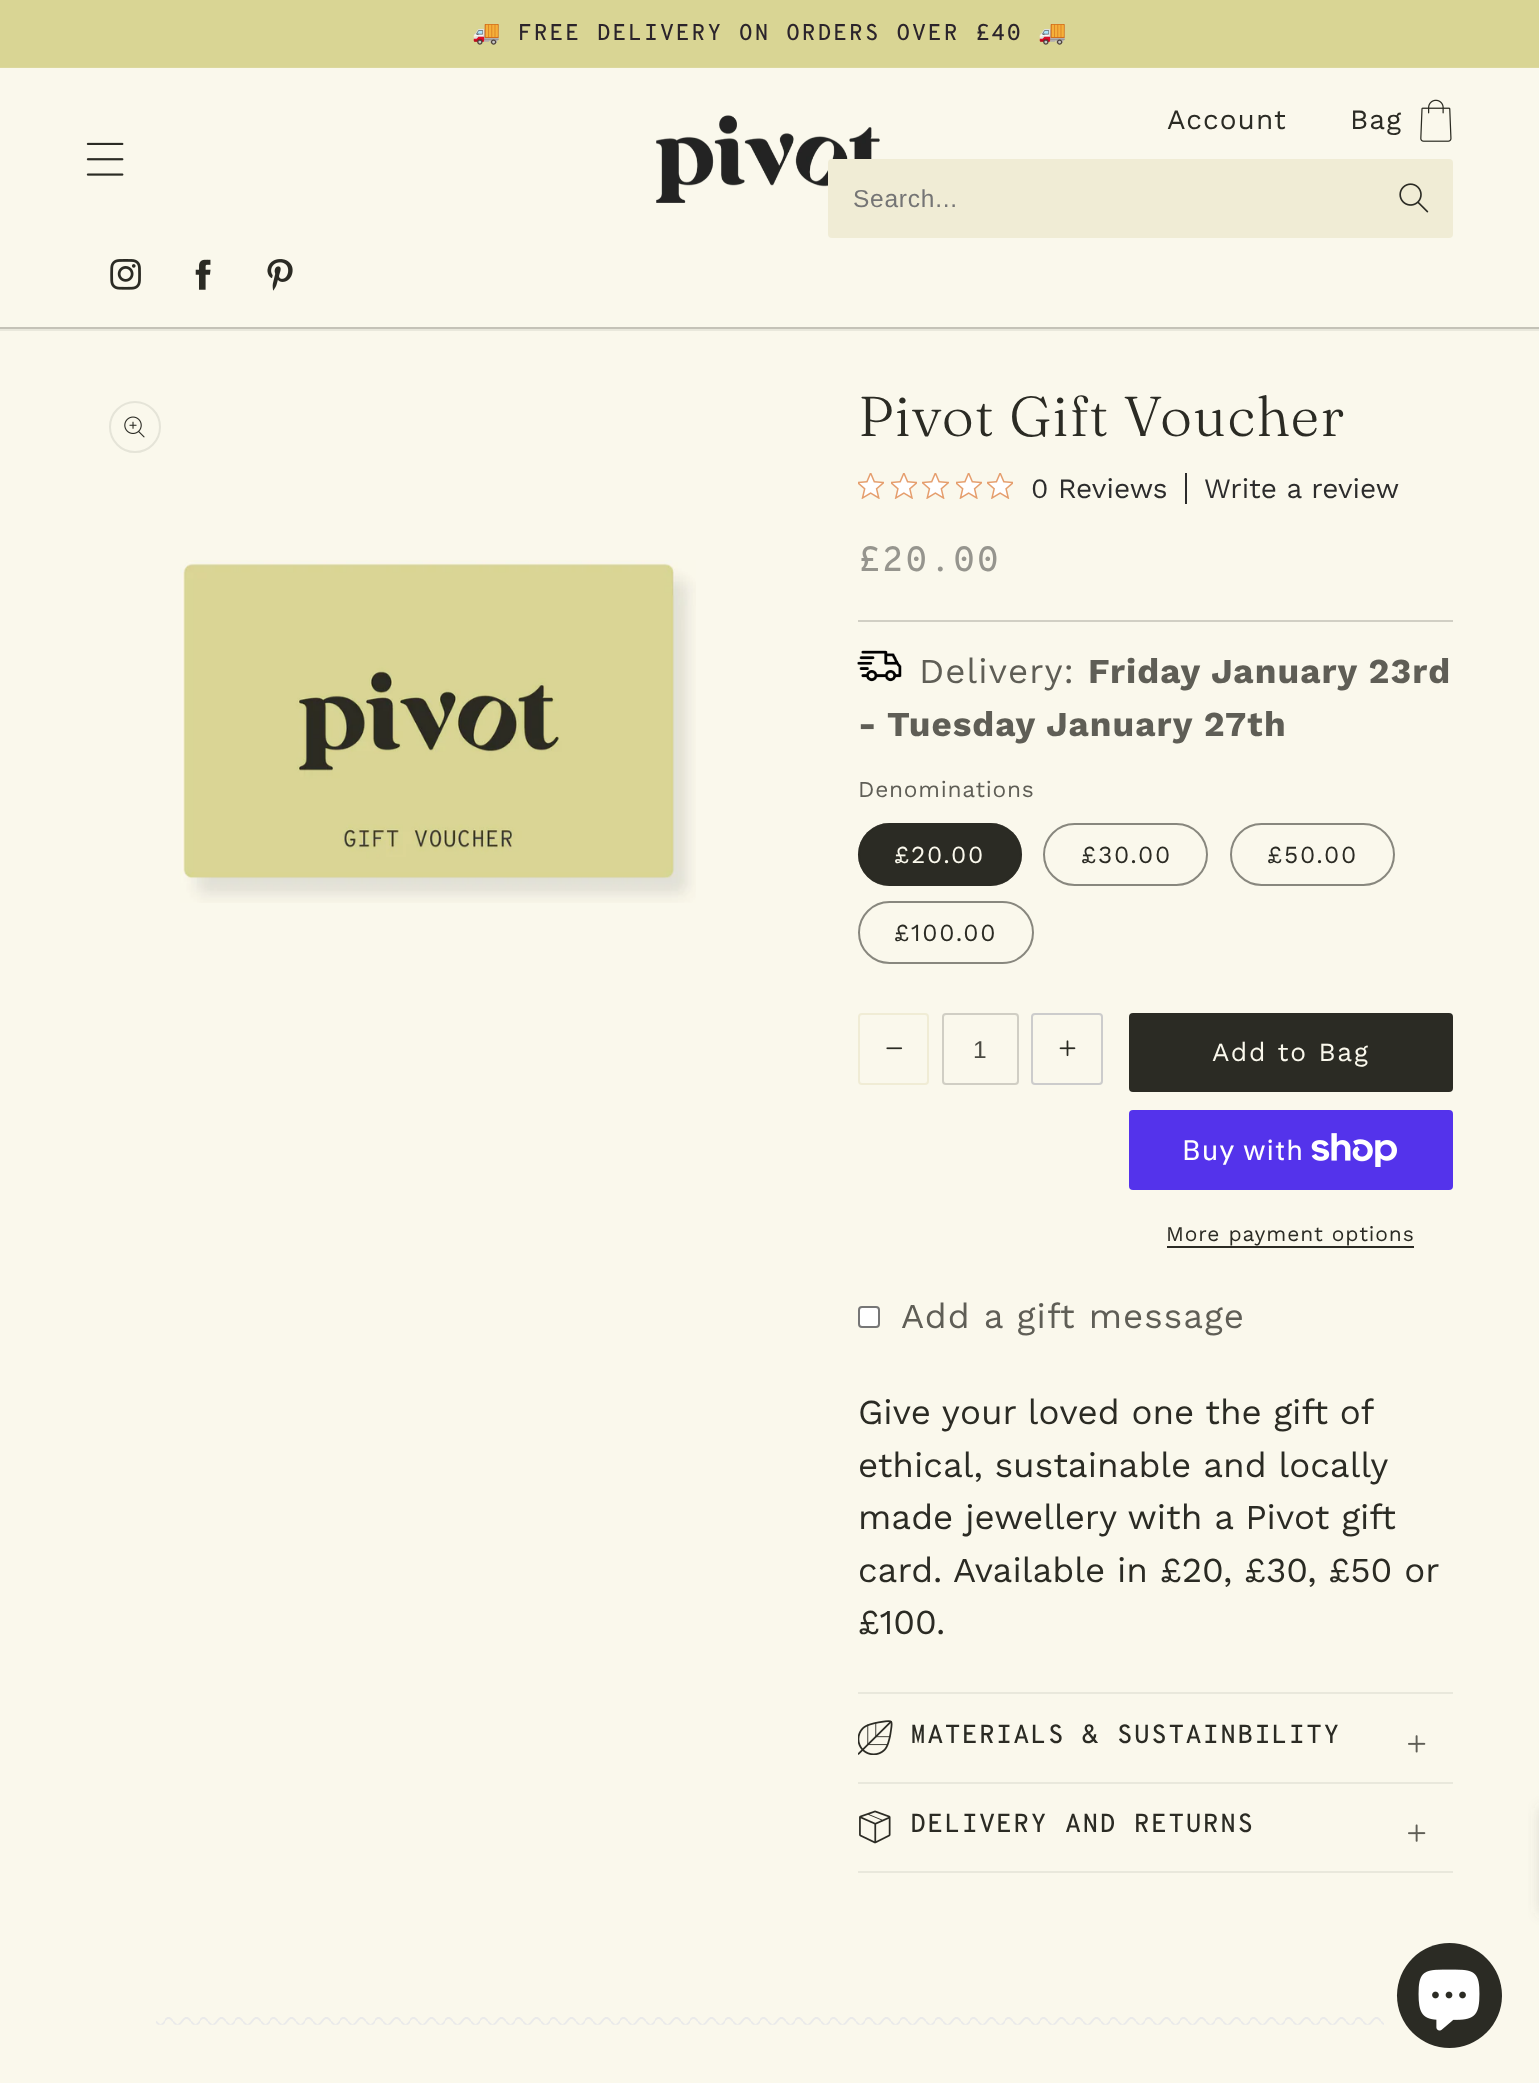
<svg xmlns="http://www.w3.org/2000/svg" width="1539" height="2083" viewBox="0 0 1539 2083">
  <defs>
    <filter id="blur1" x="-50%" y="-200%" width="200%" height="500%"><feGaussianBlur stdDeviation="7"/></filter>
  </defs>
  <rect width="100%" height="100%" fill="#faf8ec"/>
  <rect x="0" y="0" width="1539" height="67" fill="#d9d594"/>
  <rect x="0" y="67" width="1539" height="1" fill="#dcd89d"/>
  <text x="472" y="40" font-family="Noto Color Emoji" font-size="22.75" letter-spacing="1.75" fill="#2b242b">🚚</text>
  <text x="518" y="40" font-family="Overpass Mono" font-size="22.75" font-weight="500" letter-spacing="1.75" fill="#2b242b">FREE DELIVERY ON ORDERS OVER £40</text>
  <text x="1038" y="40" font-family="Noto Color Emoji" font-size="22.75" letter-spacing="1.75" fill="#2b242b">🚚</text>
  <rect x="0" y="329" width="1539" height="2" fill="#e9e8dc"/>
  <image x="86" y="142" width="38" height="34" href="img1.png"/>
  <image x="656" y="115" width="224" height="88" href="img2.png"/>
  <text x="1167" y="129" font-family="Work Sans" font-size="28" letter-spacing="1.05" fill="#2b2b24">Account</text>
  <text x="1350" y="129" font-family="Work Sans" font-size="28" letter-spacing="1.05" fill="#2b2b24">Bag</text>
  <image x="1420" y="99" width="32" height="43" href="img3.png"/>
  <rect x="828" y="159" width="625" height="79" rx="4" fill="#f0ecd5"/>
  <text x="853" y="207" font-family="Liberation Sans" font-size="24.5" letter-spacing="0.75" fill="#757575">Search...</text>
  <image x="1399" y="183" width="30" height="30" href="img4.png"/>
  <image x="110" y="259" width="31" height="31" href="img5.png"/>
  <image x="195" y="259" width="16" height="31" href="img6.png"/>
  <image x="267" y="259" width="26" height="32" href="img7.png"/>
  <rect x="0" y="327" width="1539" height="2" fill="#c4c2b7"/>
  <circle cx="135" cy="427" r="25" fill="none" stroke="#e5e4d8" stroke-width="2"/>
  <image x="124" y="416" width="21" height="22" href="img8.png"/>
  <image x="180" y="560" width="516" height="343" href="img9.png"/>
  <text x="858" y="436" font-family="Fraunces" font-size="56" font-weight="300" letter-spacing="1.05" fill="#2b2b24">Pivot Gift Voucher</text>
  <image x="858" y="473" width="26" height="26" href="img10.png"/>
  <image x="891" y="473" width="26" height="26" href="img11.png"/>
  <image x="922" y="473" width="27" height="26" href="img12.png"/>
  <image x="956" y="473" width="26" height="26" href="img10.png"/>
  <image x="987" y="473" width="26" height="26" href="img13.png"/>
  <text x="1031" y="498" font-family="Work Sans" font-size="28" fill="#2c2c2c">0 Reviews</text>
  <rect x="1185" y="473" width="2" height="31" fill="#2c2c2c"/>
  <text x="1204" y="498" font-family="Work Sans" font-size="28" fill="#2c2c2c">Write a review</text>
  <text x="858" y="571" font-family="Overpass Mono" font-size="35" font-weight="500" letter-spacing="2.25" fill="#96958e">£20.00</text>
  <rect x="858" y="620" width="595" height="2" fill="#d1cfc4"/>
  <image x="857" y="650" width="45" height="32" href="img14.png"/>
  <text x="919" y="683" font-family="Work Sans" font-size="35" letter-spacing="1.05" fill="#5f5e56">Delivery:</text>
  <text x="1088" y="683" font-family="Work Sans" font-size="35" font-weight="bold" letter-spacing="1.05" fill="#5f5e56">Friday January 23rd</text>
  <text x="858" y="736" font-family="Work Sans" font-size="35" font-weight="bold" letter-spacing="1.05" fill="#5f5e56">-</text>
  <text x="887" y="736" font-family="Work Sans" font-size="35" font-weight="bold" letter-spacing="1.05" fill="#5f5e56">Tuesday January 27th</text>
  <text x="858" y="797" font-family="Work Sans" font-size="22.75" letter-spacing="0.75" fill="#5f5e56">Denominations</text>
  <rect x="858" y="823" width="164" height="63" rx="31.5" fill="#2b2b24"/>
  <rect x="859" y="824" width="162" height="61" rx="30.5" fill="none" stroke="#2b2b24" stroke-opacity="0.55" stroke-width="2"/>
  <text x="894" y="863" font-family="Work Sans" font-size="24.5" letter-spacing="1.75" fill="#faf8ec">£20.00</text>
  <rect x="1044" y="824" width="163" height="61" rx="30.5" fill="none" stroke="#88877e" stroke-width="2"/>
  <text x="1081" y="863" font-family="Work Sans" font-size="24.5" letter-spacing="1.75" fill="#2b2b24">£30.00</text>
  <rect x="1231" y="824" width="163" height="61" rx="30.5" fill="none" stroke="#88877e" stroke-width="2"/>
  <text x="1267" y="863" font-family="Work Sans" font-size="24.5" letter-spacing="1.75" fill="#2b2b24">£50.00</text>
  <rect x="859" y="902" width="174" height="61" rx="30.5" fill="none" stroke="#88877e" stroke-width="2"/>
  <text x="894" y="941" font-family="Work Sans" font-size="24.5" letter-spacing="1.75" fill="#2b2b24">£100.00</text>
  <rect x="859" y="1014" width="69" height="70" rx="3" fill="none" stroke="#f0ecd5" stroke-width="2"/>
  <image x="886" y="1047" width="17" height="3" href="img15.png"/>
  <rect x="943" y="1014" width="75" height="70" rx="3" fill="none" stroke="#d0cec4" stroke-width="2"/>
  <text x="973" y="1058" font-family="Liberation Sans" font-size="24.5" fill="#4a4a42">1</text>
  <rect x="1032" y="1014" width="70" height="70" rx="3" fill="none" stroke="#cccccc" stroke-width="2"/>
  <image x="1059" y="1040" width="17" height="17" href="img16.png"/>
  <rect x="1129" y="1013" width="324" height="79" rx="4" fill="#2b2b24"/>
  <text x="1212" y="1061" font-family="Work Sans" font-size="26.25" letter-spacing="1.75" fill="#faf8ec">Add to Bag</text>
  <rect x="1129" y="1110" width="324" height="80" rx="4" fill="#5433eb"/>
  <text x="1182" y="1160" font-family="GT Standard" font-size="28" letter-spacing="1.05" fill="#ffffff">Buy with</text>
  <image x="1311" y="1133" width="86" height="34" href="img17.png"/>
  <text x="1166" y="1241" font-family="Work Sans" font-size="21" letter-spacing="0.9" fill="#2b2b24">More payment options</text>
  <rect x="1167" y="1246" width="247" height="2" fill="#2b2b24"/>
  <rect x="859" y="1307" width="20" height="20" rx="3" fill="#ffffff" stroke="#767676" stroke-width="2"/>
  <text x="901" y="1328" font-family="Work Sans" font-size="35" letter-spacing="1.05" fill="#5f5e56">Add a gift message</text>
  <text x="858" y="1424" word-spacing="-0.25" font-family="Work Sans" font-size="35" fill="#2b2b24">Give your loved one the gift of</text>
  <text x="858" y="1477" font-family="Work Sans" font-size="35" fill="#2b2b24">ethical, sustainable and locally</text>
  <text x="858" y="1529" font-family="Work Sans" font-size="35" fill="#2b2b24">made jewellery with a Pivot gift</text>
  <text x="858" y="1582" font-family="Work Sans" font-size="35" fill="#2b2b24">card. Available in £20, £30, £50 or</text>
  <text x="858" y="1634" font-family="Work Sans" font-size="35" fill="#2b2b24">£100.</text>
  <rect x="858" y="1692" width="595" height="2" fill="#e9e8dc"/>
  <rect x="858" y="1782" width="595" height="2" fill="#e9e8dc"/>
  <image x="858" y="1720" width="35" height="35" href="img18.png"/>
  <text x="910" y="1743" font-family="Overpass Mono" font-size="26.25" font-weight="500" letter-spacing="1.05" fill="#2b2b24">MATERIALS &amp; SUSTAINBILITY</text>
  <image x="1408" y="1735" width="18" height="18" href="img19.png"/>
  <rect x="858" y="1871" width="595" height="2" fill="#e9e8dc"/>
  <image x="859" y="1810" width="32" height="34" href="img20.png"/>
  <text x="910" y="1832" font-family="Overpass Mono" font-size="26.25" font-weight="500" letter-spacing="1.05" fill="#2b2b24">DELIVERY AND RETURNS</text>
  <image x="1408" y="1824" width="18" height="18" href="img21.png"/>
  <rect x="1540" y="1808" width="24" height="105" rx="4" fill="#636363" fill-opacity="0.2" filter="url(#blur1)"/>
  <image x="156" y="2017" width="1228" height="8" href="img22.png"/>
  <circle cx="1449.5" cy="1995.5" r="52.5" fill="#2b2b24"/>
  <image x="1418" y="1969" width="62" height="62" href="img23.png"/>
</svg>
